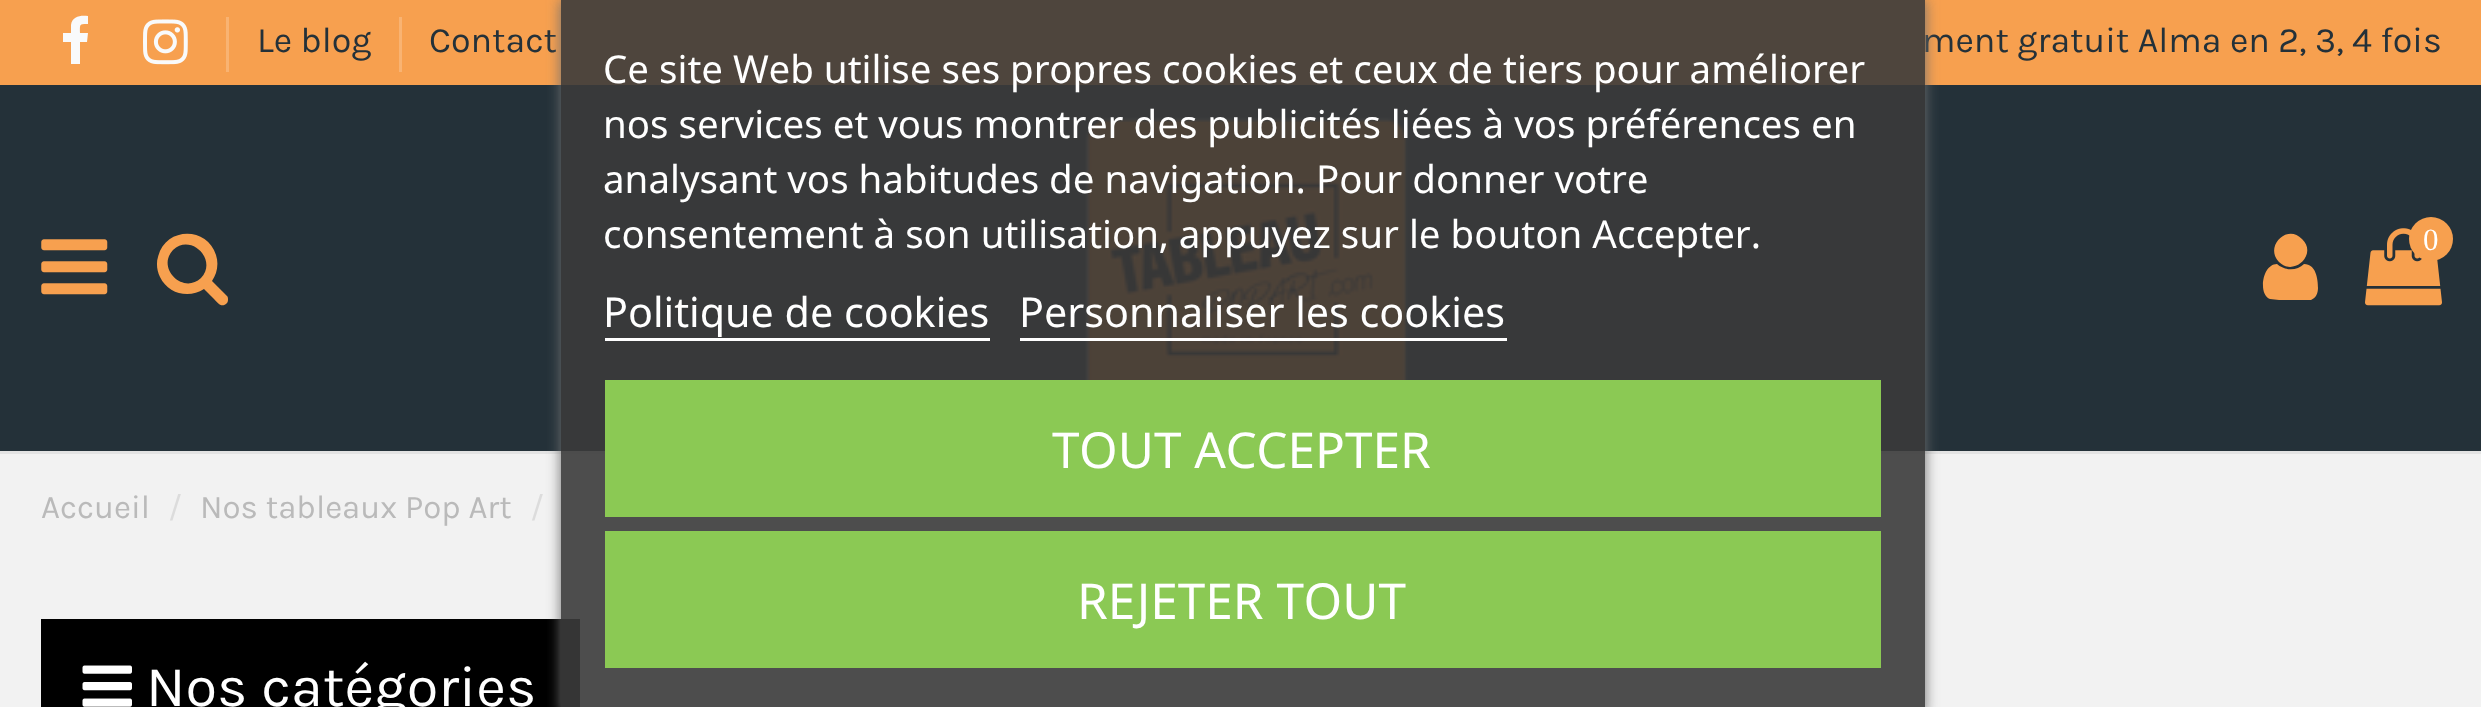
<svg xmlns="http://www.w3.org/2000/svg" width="2481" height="707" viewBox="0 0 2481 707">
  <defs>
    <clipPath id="clip1"><path d="M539 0H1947V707H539ZM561-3H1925V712H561Z" clip-rule="evenodd"/></clipPath>
    <filter id="blur1" x="-50%" y="-200%" width="200%" height="500%"><feGaussianBlur stdDeviation="7"/></filter>
  </defs>
  <rect width="100%" height="100%" fill="#f2f2f2"/>
  <rect x="0" y="85" width="2481" height="366" fill="#243139"/>
  <rect x="0" y="0" width="2481" height="85" fill="#f7a04f"/>
  <path d="M88 16V24C79 24 80 24 80 33H88L87 42H80V64H71V42H63V33H71V25C72 16 81 15 88 16Z" fill="#f9fafb"/>
  <image x="143" y="19" width="45" height="46" href="img1.png"/>
  <rect x="226" y="17" width="3" height="55" fill="#f9b372"/>
  <text x="257" y="52" font-family="Karla" font-size="35.75" fill="#243139">Le blog</text>
  <rect x="399" y="17" width="3" height="55" fill="#f9b372"/>
  <text x="429" y="52" font-family="Karla" font-size="35.75" fill="#243139">Contact</text>
  <text x="1922" y="52" font-family="Karla" font-size="35.75" fill="#243139">ment gratuit Alma en 2, 3, 4 fois</text>
  <rect x="0" y="451" width="2481" height="3" fill="#e3e3e3"/>
  <image x="41" y="239" width="67" height="56" href="img2.png"/>
  <path d="M201 278C218 260 191 233 173 250C156 268 183 295 201 278ZM228 300C228 302 227 303 226 304C221 308 217 302 214 299L204 289C189 299 168 294 160 277C157 271 156 263 158 257C165 227 207 226 216 255C219 264 217 274 212 281L227 296C228 297 228 298 228 300Z" fill="#f7a04f"/>
  <image x="1085" y="117" width="323" height="263" href="img3.png"/>
  <path d="M2318 288C2318 293 2316 298 2311 300H2279L2270 299C2258 295 2262 264 2277 264C2285 271 2297 271 2304 264C2316 264 2318 279 2318 288ZM2302 239C2318 254 2294 277 2279 262C2264 247 2287 223 2302 239Z" fill="#f7a04f"/>
  <image x="2365" y="228" width="77" height="78" href="img4.png"/>
  <circle cx="2431" cy="239" r="22" fill="#f7a04f"/>
  <text x="2423" y="250" font-family="Liberation Serif" font-size="31" fill="#ffffff">0</text>
  <text x="41" y="518" font-family="Karla" font-size="33" fill="#bababa">Accueil</text>
  <text x="168" y="518" font-family="Karla" font-size="33" fill="#dcdcdc">/</text>
  <text x="200" y="518" font-family="Karla" font-size="33" fill="#bababa">Nos tableaux Pop Art</text>
  <text x="530" y="518" font-family="Karla" font-size="33" fill="#dcdcdc">/</text>
  <rect x="41" y="619" width="539" height="88" fill="#000000"/>
  <image x="82" y="665" width="50" height="42" href="img5.png"/>
  <text x="146" y="706" font-family="Karla" font-size="57.75" fill="#ffffff">Nos catégories</text>
  <g clip-path="url(#clip1)">
    <rect x="561" y="0" width="1364" height="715" fill="#707070" filter="url(#blur1)"/>
  </g>
  <rect x="561" y="0" width="1364" height="707" fill="#3b3b3b" fill-opacity="0.9"/>
  <text x="603" y="83" font-family="Noto Sans" font-size="38.5" fill="#ffffff">Ce site Web utilise ses propres cookies et ceux de tiers pour améliorer</text>
  <text x="603" y="138" font-family="Noto Sans" font-size="38.5" fill="#ffffff">nos services et vous montrer des publicités liées à vos préférences en</text>
  <text x="603" y="193" font-family="Noto Sans" font-size="38.5" fill="#ffffff">analysant vos habitudes de navigation. Pour donner votre</text>
  <text x="603" y="248" font-family="Noto Sans" font-size="38.5" fill="#ffffff">consentement à son utilisation, appuyez sur le bouton Accepter.</text>
  <text x="603" y="327" font-family="Noto Sans" font-size="41.25" fill="#ffffff">Politique de cookies</text>
  <rect x="605" y="338" width="385" height="3" fill="#ffffff"/>
  <text x="1019" y="327" font-family="Noto Sans" font-size="41.25" fill="#ffffff">Personnaliser les cookies</text>
  <rect x="1020" y="338" width="487" height="3" fill="#ffffff"/>
  <rect x="605" y="380" width="1276" height="137" fill="#8bc954"/>
  <text x="1052" y="468" font-family="Noto Sans" font-size="49.5" fill="#ffffff">TOUT ACCEPTER</text>
  <rect x="605" y="531" width="1276" height="137" fill="#8bc954"/>
  <text x="1077" y="619" font-family="Noto Sans" font-size="49.5" fill="#ffffff">REJETER TOUT</text>
</svg>
